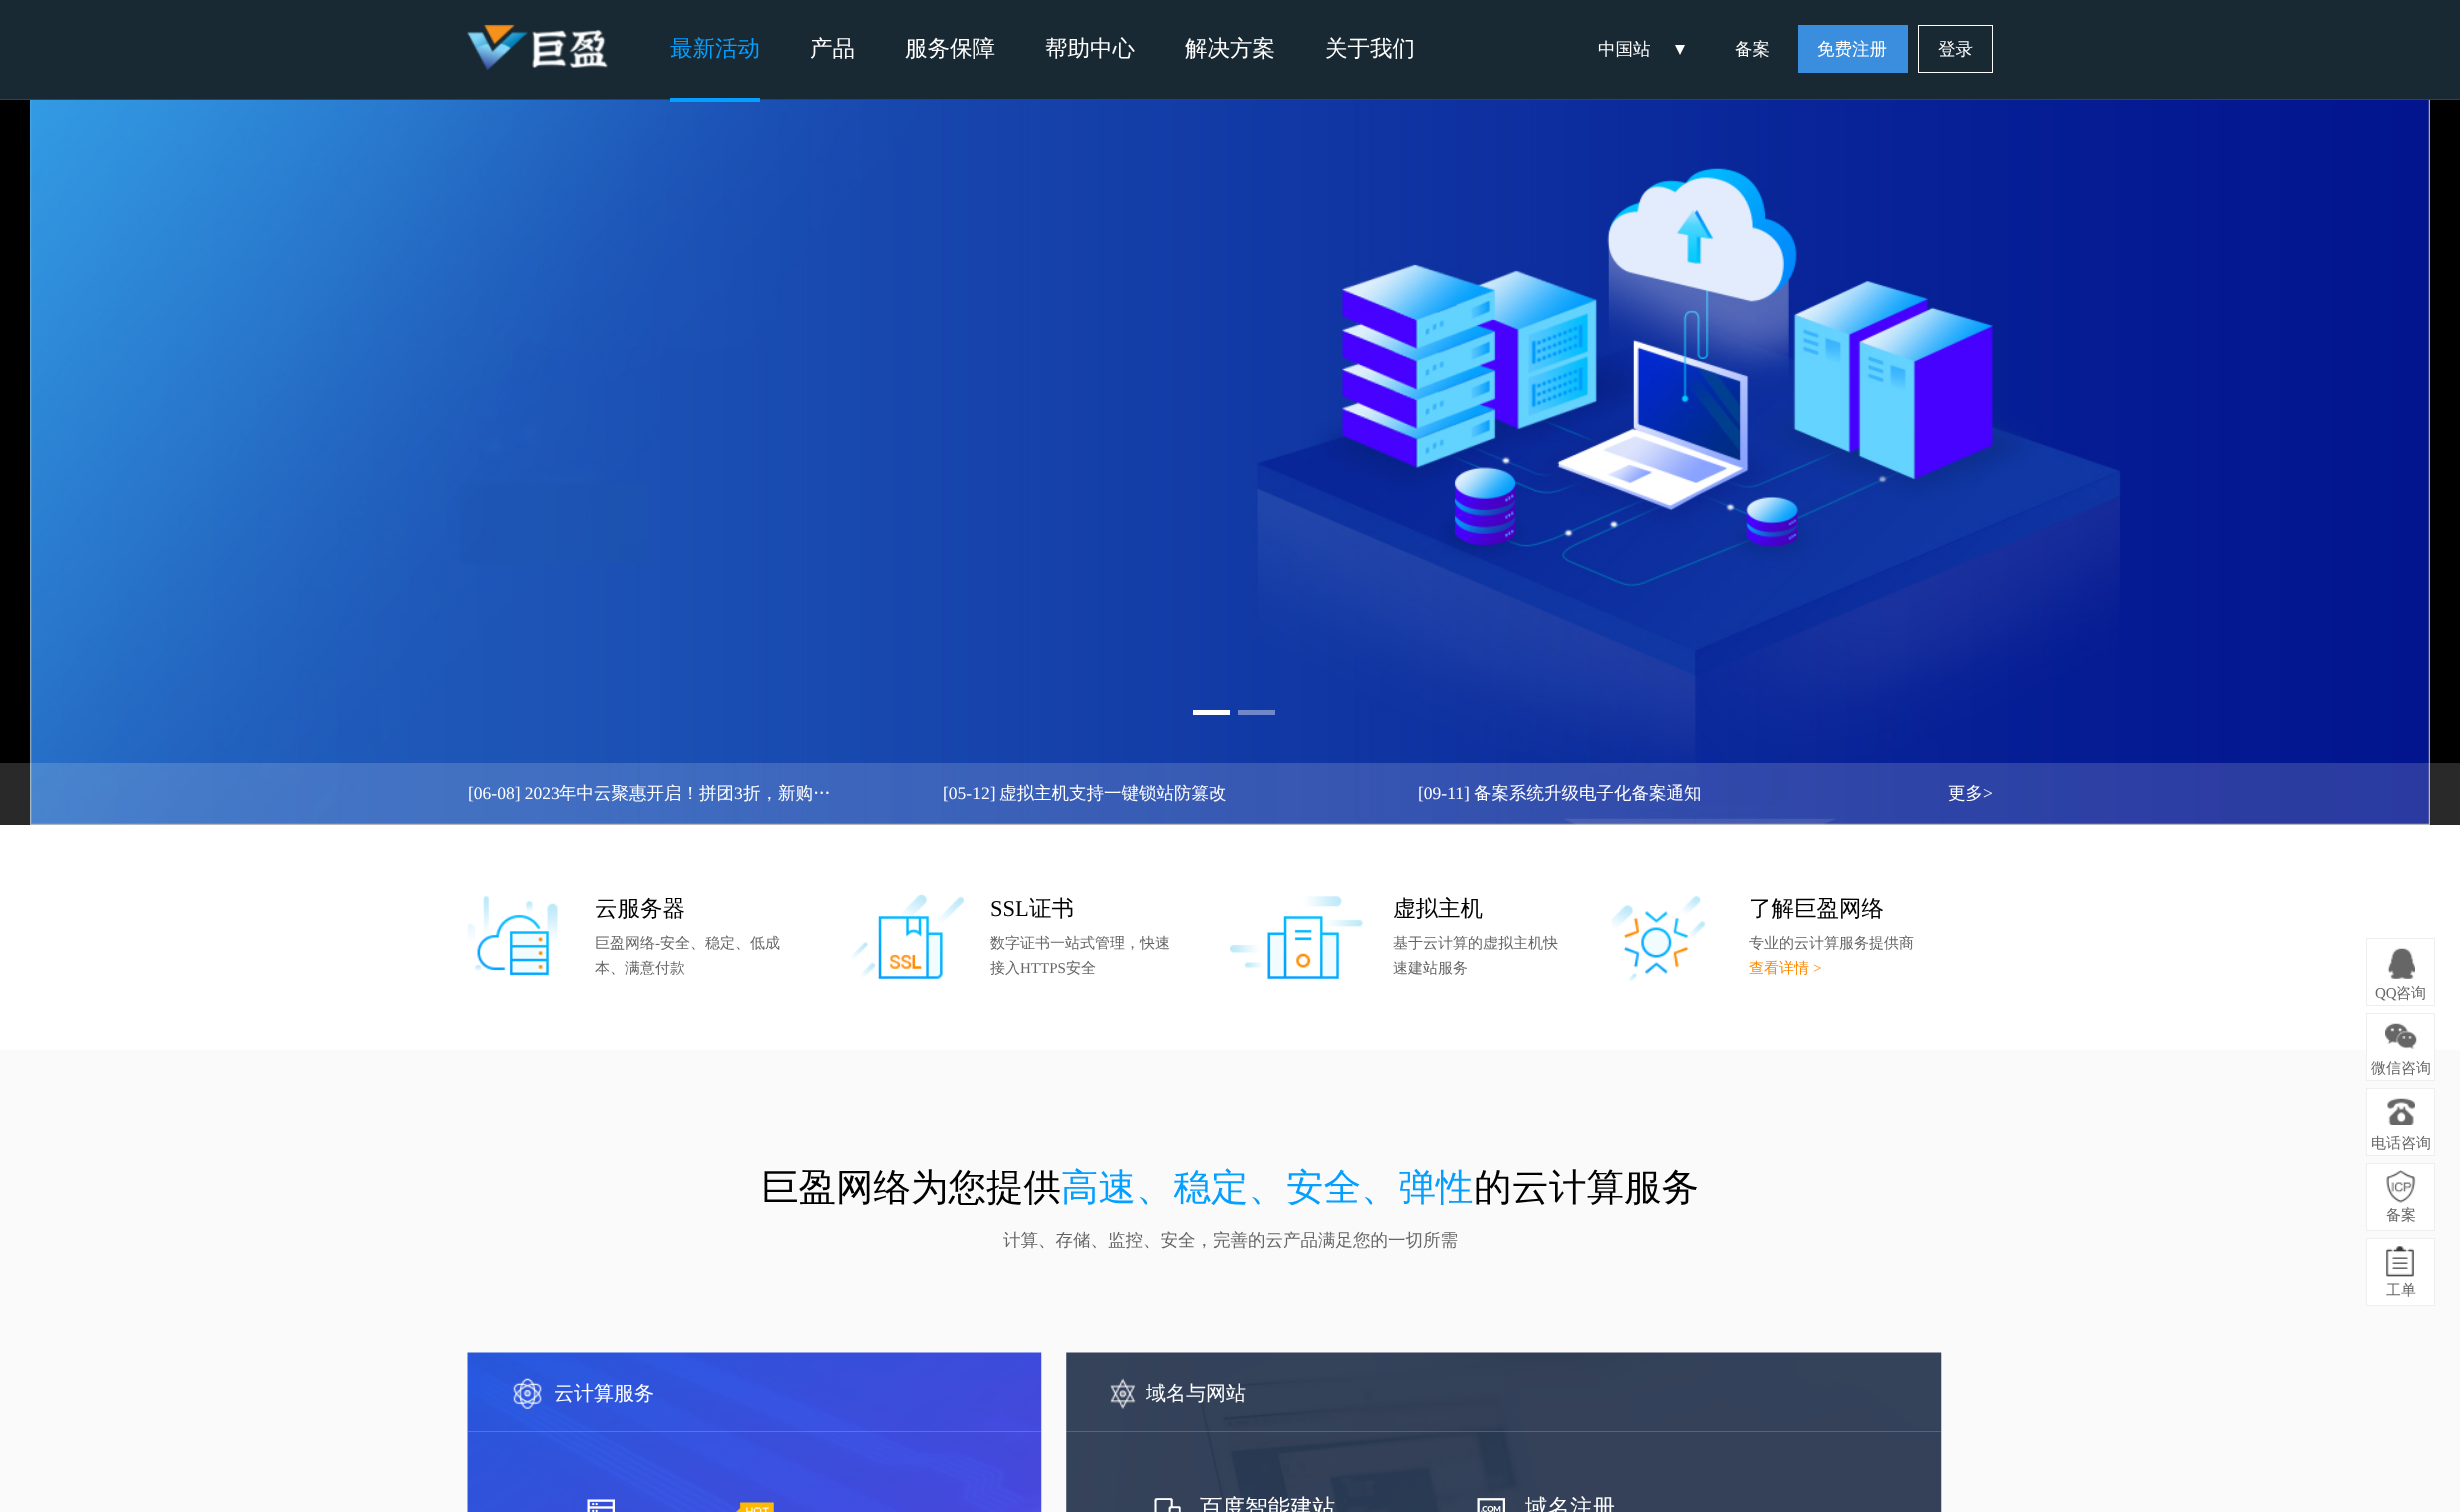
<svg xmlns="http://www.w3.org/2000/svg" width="2460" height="1512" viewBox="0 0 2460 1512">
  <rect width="100%" height="100%" fill="#ffffff"/>
  <rect x="0" y="0" width="2460" height="99" fill="#192933"/>
  <rect x="0" y="99" width="2460" height="1" fill="#134c70"/>
  <image x="467" y="24" width="141" height="47" href="img1.png"/>
  <text x="670" y="56" font-family="WenQuanYi Zen Hei" font-size="22.5" font-weight="500" fill="#059fff">最新活动</text>
  <rect x="0" y="100" width="2460" height="725" fill="#000000"/>
  <image x="30" y="100" width="2400" height="725" href="img2.png"/>
  <rect x="670" y="98" width="90" height="4" fill="#059fff"/>
  <text x="810" y="56" font-family="WenQuanYi Zen Hei" font-size="22.5" font-weight="500" fill="#ffffff">产品</text>
  <text x="905" y="56" font-family="WenQuanYi Zen Hei" font-size="22.5" font-weight="500" fill="#ffffff">服务保障</text>
  <text x="1045" y="56" font-family="WenQuanYi Zen Hei" font-size="22.5" font-weight="500" fill="#ffffff">帮助中心</text>
  <text x="1185" y="56" font-family="WenQuanYi Zen Hei" font-size="22.5" font-weight="500" fill="#ffffff">解决方案</text>
  <text x="1325" y="56" font-family="WenQuanYi Zen Hei" font-size="22.5" font-weight="500" fill="#ffffff">关于我们</text>
  <text x="1598" y="55" font-family="WenQuanYi Zen Hei" font-size="17.5" font-weight="500" fill="#ffffff">中国站</text>
  <path d="M1675 45H1685L1680 55Z" fill="#ffffff"/>
  <text x="1735" y="55" font-family="WenQuanYi Zen Hei" font-size="17.5" font-weight="500" fill="#ffffff">备案</text>
  <rect x="1798" y="25" width="110" height="48" fill="#3b8ede"/>
  <text x="1817" y="55" font-family="WenQuanYi Zen Hei" font-size="17.5" font-weight="500" fill="#ffffff">免费注册</text>
  <rect x="1918.5" y="25.5" width="74" height="47" fill="none" stroke="#ffffff"/>
  <text x="1938" y="55" font-family="WenQuanYi Zen Hei" font-size="17.5" font-weight="500" fill="#ffffff">登录</text>
  <rect x="1193" y="710" width="37" height="5" fill="#ffffff"/>
  <rect x="1238" y="710" width="37" height="5" fill="#ffffff" fill-opacity="0.4"/>
  <rect x="0" y="763" width="2460" height="62" fill="#ffffff" fill-opacity="0.16"/>
  <text x="468" y="799" font-family="Liberation Serif" font-size="17.5" fill="#ffffff">[06-08] 2023</text>
  <text x="559" y="799" font-family="WenQuanYi Zen Hei" font-size="17.5" font-weight="500" fill="#ffffff">年中云聚惠开启！拼团</text>
  <text x="734" y="799" font-family="Liberation Serif" font-size="17.5" fill="#ffffff">3</text>
  <text x="743" y="799" font-family="WenQuanYi Zen Hei" font-size="17.5" font-weight="500" fill="#ffffff">折，新购…</text>
  <text x="943" y="799" font-family="Liberation Serif" font-size="17.5" fill="#ffffff">[05-12]</text>
  <text x="999" y="799" font-family="WenQuanYi Zen Hei" font-size="17.5" font-weight="500" fill="#ffffff">虚拟主机支持一键锁站防篡改</text>
  <text x="1418" y="799" font-family="Liberation Serif" font-size="17.5" fill="#ffffff">[09-11]</text>
  <text x="1474" y="799" font-family="WenQuanYi Zen Hei" font-size="17.5" font-weight="500" fill="#ffffff">备案系统升级电子化备案通知</text>
  <text x="1948" y="799" font-family="WenQuanYi Zen Hei" font-size="17.5" font-weight="500" fill="#ffffff">更多</text>
  <text x="1983" y="799" font-family="Liberation Serif" font-size="17.5" fill="#ffffff">&gt;</text>
  <image x="467" y="896" width="91" height="80" href="img3.png"/>
  <text x="595" y="916" font-family="WenQuanYi Zen Hei" font-size="22.5" font-weight="500" fill="#000000">云服务器</text>
  <text x="595" y="948" font-family="WenQuanYi Zen Hei" font-size="15" font-weight="500" fill="#666666">巨盈网络</text>
  <text x="655" y="948" font-family="Liberation Serif" font-size="15" fill="#666666">-</text>
  <text x="660" y="948" font-family="WenQuanYi Zen Hei" font-size="15" font-weight="500" fill="#666666">安全、稳定、低成</text>
  <text x="595" y="973" font-family="WenQuanYi Zen Hei" font-size="15" font-weight="500" fill="#666666">本、满意付款</text>
  <image x="851" y="894" width="113" height="85" href="img4.png"/>
  <text x="990" y="916" font-family="Liberation Serif" font-size="22.5" fill="#000000">SSL</text>
  <text x="1029" y="916" font-family="WenQuanYi Zen Hei" font-size="22.5" font-weight="500" fill="#000000">证书</text>
  <text x="990" y="948" font-family="WenQuanYi Zen Hei" font-size="15" font-weight="500" fill="#666666">数字证书一站式管理，快速</text>
  <text x="990" y="973" font-family="WenQuanYi Zen Hei" font-size="15" font-weight="500" fill="#666666">接入</text>
  <text x="1020" y="973" font-family="Liberation Serif" font-size="15" fill="#666666">HTTPS</text>
  <text x="1066" y="973" font-family="WenQuanYi Zen Hei" font-size="15" font-weight="500" fill="#666666">安全</text>
  <image x="1230" y="896" width="133" height="83" href="img5.png"/>
  <text x="1393" y="916" font-family="WenQuanYi Zen Hei" font-size="22.5" font-weight="500" fill="#000000">虚拟主机</text>
  <text x="1393" y="948" font-family="WenQuanYi Zen Hei" font-size="15" font-weight="500" fill="#666666">基于云计算的虚拟主机快</text>
  <text x="1393" y="973" font-family="WenQuanYi Zen Hei" font-size="15" font-weight="500" fill="#666666">速建站服务</text>
  <image x="1611" y="896" width="95" height="85" href="img6.png"/>
  <text x="1749" y="916" font-family="WenQuanYi Zen Hei" font-size="22.5" font-weight="500" fill="#000000">了解巨盈网络</text>
  <text x="1749" y="948" font-family="WenQuanYi Zen Hei" font-size="15" font-weight="500" fill="#666666">专业的云计算服务提供商</text>
  <text x="1749" y="973" font-family="WenQuanYi Zen Hei" font-size="15" font-weight="500" fill="#ff8a00">查看详情</text>
  <text x="1813" y="973" font-family="Liberation Serif" font-size="15" fill="#ff8a00">&gt;</text>
  <rect x="0" y="1050" width="2460" height="462" fill="#fafafa"/>
  <text x="761" y="1200" font-family="WenQuanYi Zen Hei" font-size="37.5" font-weight="500" fill="#000000">巨盈网络为您提供</text>
  <text x="1061" y="1200" font-family="WenQuanYi Zen Hei" font-size="37.5" font-weight="500" fill="#059fff">高速、稳定、安全、弹性</text>
  <text x="1474" y="1200" font-family="WenQuanYi Zen Hei" font-size="37.5" font-weight="500" fill="#000000">的云计算服务</text>
  <text x="1003" y="1246" font-family="WenQuanYi Zen Hei" font-size="17.5" font-weight="500" fill="#666666">计算、存储、监控、安全，完善的云产品满足您的一切所需</text>
  <image x="467" y="1352" width="575" height="160" href="img7.png"/>
  <image x="513" y="1378" width="29" height="31" href="img8.png"/>
  <text x="554" y="1400" font-family="WenQuanYi Zen Hei" font-size="20" font-weight="500" fill="#ffffff">云计算服务</text>
  <rect x="468" y="1431" width="573" height="1" fill="#ffffff" fill-opacity="0.18"/>
  <image x="587" y="1499" width="28" height="13" href="img9.png"/>
  <image x="736" y="1502" width="38" height="10" href="img10.png"/>
  <image x="1066" y="1352" width="876" height="160" href="img11.png"/>
  <image x="1110" y="1378" width="26" height="31" href="img12.png"/>
  <text x="1146" y="1400" font-family="WenQuanYi Zen Hei" font-size="20" font-weight="500" fill="#ffffff">域名与网站</text>
  <rect x="1066" y="1431" width="875" height="1" fill="#ffffff" fill-opacity="0.18"/>
  <image x="1154" y="1498" width="27" height="14" href="img13.png"/>
  <text x="1200" y="1515" font-family="WenQuanYi Zen Hei" font-size="22.5" font-weight="500" fill="#ffffff">百度智能建站</text>
  <image x="1477" y="1498" width="28" height="14" href="img14.png"/>
  <text x="1525" y="1515" font-family="WenQuanYi Zen Hei" font-size="22.5" font-weight="500" fill="#ffffff">域名注册</text>
  <image x="2387" y="948" width="28" height="31" href="img15.png"/>
  <rect x="2366.5" y="938.5" width="68" height="67" fill="none" stroke="#eeeeee"/>
  <text x="2375" y="998" font-family="Liberation Serif" font-size="15" fill="#666666">QQ</text>
  <text x="2396" y="998" font-family="WenQuanYi Zen Hei" font-size="15" font-weight="500" fill="#666666">咨询</text>
  <rect x="2367" y="1050" width="67" height="30" fill="#ffffff"/>
  <image x="2385" y="1023" width="32" height="26" href="img16.png"/>
  <rect x="2366.5" y="1013.5" width="68" height="67" fill="none" stroke="#eeeeee"/>
  <text x="2371" y="1073" font-family="WenQuanYi Zen Hei" font-size="15" font-weight="500" fill="#666666">微信咨询</text>
  <rect x="2367" y="1089" width="67" height="66" fill="#ffffff"/>
  <image x="2387" y="1098" width="28" height="27" href="img17.png"/>
  <rect x="2366.5" y="1088.5" width="68" height="67" fill="none" stroke="#eeeeee"/>
  <text x="2371" y="1148" font-family="WenQuanYi Zen Hei" font-size="15" font-weight="500" fill="#666666">电话咨询</text>
  <rect x="2366.5" y="1163.5" width="68" height="67" fill="#ffffff" stroke="#eeeeee"/>
  <image x="2386" y="1170" width="30" height="33" href="img18.png"/>
  <text x="2386" y="1220" font-family="WenQuanYi Zen Hei" font-size="15" font-weight="500" fill="#666666">备案</text>
  <rect x="2366.5" y="1238.5" width="68" height="67" fill="#ffffff" stroke="#eeeeee"/>
  <image x="2386" y="1246" width="28" height="31" href="img19.png"/>
  <text x="2386" y="1295" font-family="WenQuanYi Zen Hei" font-size="15" font-weight="500" fill="#666666">工单</text>
</svg>
